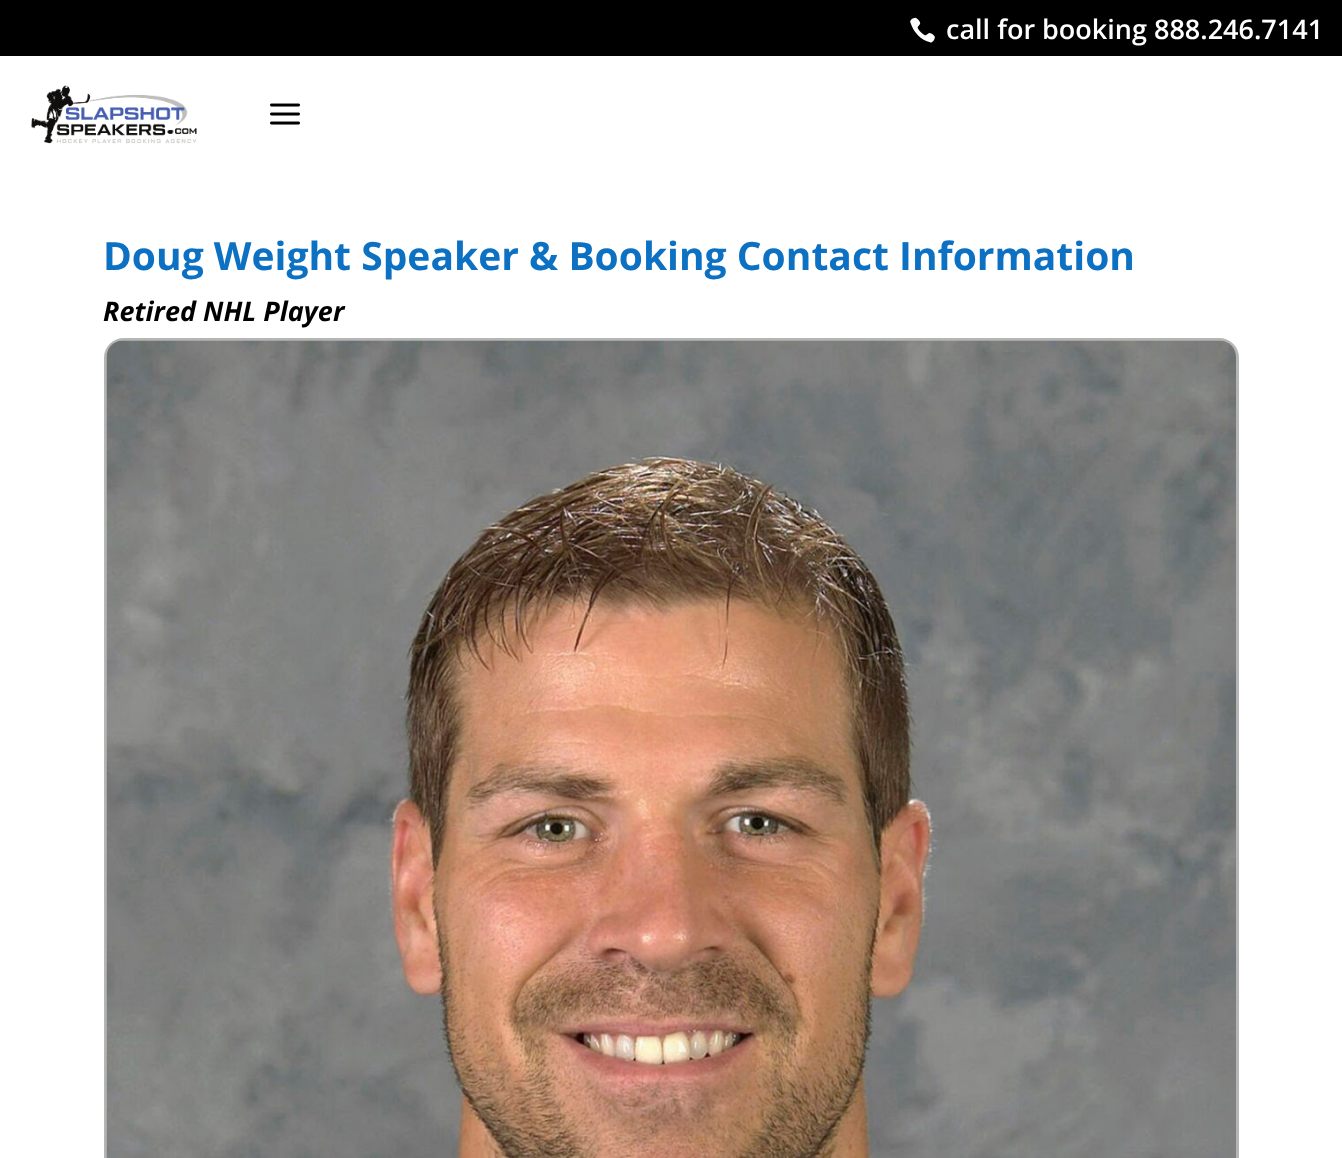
<svg xmlns="http://www.w3.org/2000/svg" width="1342" height="1158" viewBox="0 0 1342 1158">
  <rect width="100%" height="100%" fill="#ffffff"/>
  <rect x="0" y="0" width="1342" height="56" fill="#000000"/>
  <image x="910" y="17" width="25" height="26" href="img1.png"/>
  <text x="946" y="39" font-family="Open Sans" font-size="27" font-weight="600" fill="#ffffff">call for booking 888.246.7141</text>
  <image x="31" y="85" width="166" height="59" href="img2.png"/>
  <image x="270" y="103" width="30" height="22" href="img3.png"/>
  <text x="103" y="270" font-family="Open Sans" font-size="39" font-weight="bold" fill="#0c71c3">Doug Weight Speaker &amp; Booking Contact Information</text>
  <text x="103" y="321" font-family="Open Sans" font-size="27" font-weight="bold" font-style="italic" fill="#000000">Retired NHL Player</text>
  <rect x="105.5" y="339.5" width="1132" height="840" rx="18.5" fill="none" stroke="#b5b5b5" stroke-width="3"/>
  <image x="106" y="340" width="1130" height="818" href="img4.png"/>
</svg>
